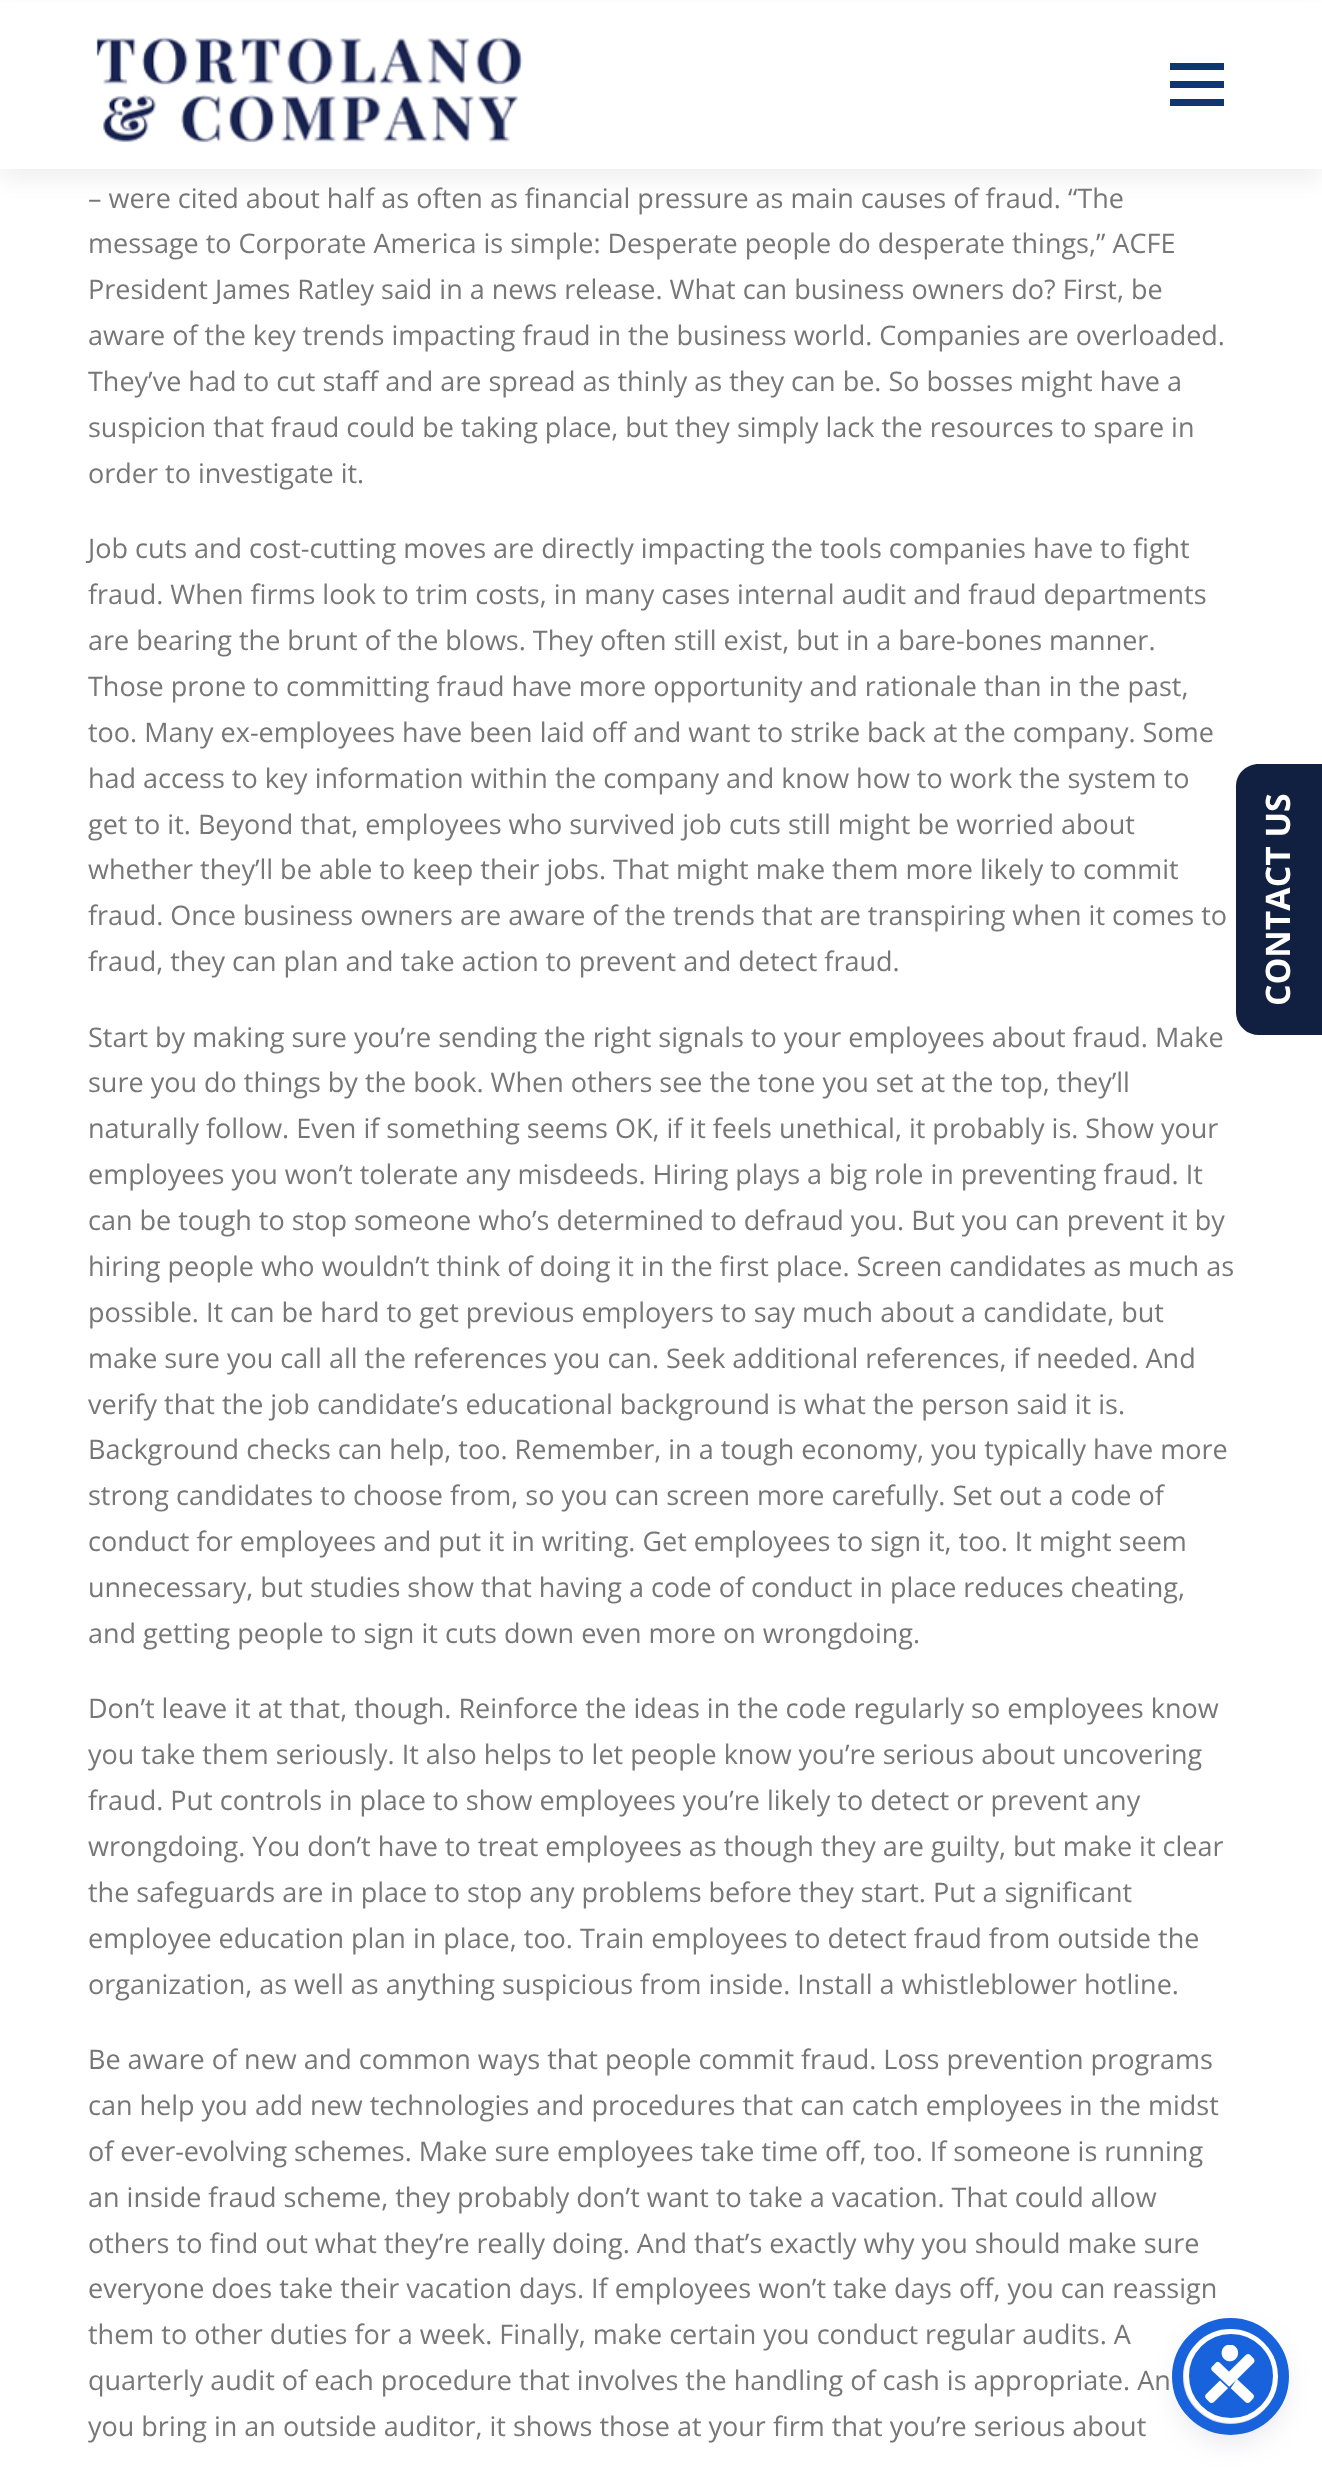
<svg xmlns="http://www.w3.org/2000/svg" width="1322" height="2467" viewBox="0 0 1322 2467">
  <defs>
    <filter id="blur1" x="-50%" y="-200%" width="200%" height="500%"><feGaussianBlur stdDeviation="11"/></filter>
    <filter id="blur2" x="-50%" y="-200%" width="200%" height="500%"><feGaussianBlur stdDeviation="4.5"/></filter>
    <filter id="blur3" x="-50%" y="-200%" width="200%" height="500%"><feGaussianBlur stdDeviation="17"/></filter>
  </defs>
  <rect width="100%" height="100%" fill="#ffffff"/>
  <rect x="0" y="11" width="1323" height="169" fill="#323232" fill-opacity="0.06" filter="url(#blur1)"/>
  <rect x="0" y="2" width="1322" height="167" fill="#ffffff"/>
  <image x="96" y="37" width="427" height="106" href="img1.png"/>
  <rect x="1170" y="81" width="54" height="7" fill="#0f3670"/>
  <rect x="1170" y="63" width="54" height="7" fill="#0f3670"/>
  <rect x="1170" y="99" width="54" height="7" fill="#0f3670"/>
  <text x="88" y="208" font-family="Open Sans" font-size="27" fill="#777777">– were cited about half as often as financial pressure as main causes of fraud. “The</text>
  <text x="88" y="253" font-family="Open Sans" font-size="27" fill="#777777">message to Corporate America is simple: Desperate people do desperate things,” ACFE</text>
  <text x="88" y="299" font-family="Open Sans" font-size="27" fill="#777777">President James Ratley said in a news release. What can business owners do? First, be</text>
  <text x="88" y="345" font-family="Open Sans" font-size="27" fill="#777777">aware of the key trends impacting fraud in the business world. Companies are overloaded.</text>
  <text x="88" y="391" font-family="Open Sans" font-size="27" fill="#777777">They’ve had to cut staff and are spread as thinly as they can be. So bosses might have a</text>
  <text x="88" y="437" font-family="Open Sans" font-size="27" fill="#777777">suspicion that fraud could be taking place, but they simply lack the resources to spare in</text>
  <text x="88" y="483" font-family="Open Sans" font-size="27" fill="#777777">order to investigate it.</text>
  <text x="88" y="558" font-family="Open Sans" font-size="27" fill="#777777">Job cuts and cost-cutting moves are directly impacting the tools companies have to fight</text>
  <text x="88" y="604" font-family="Open Sans" font-size="27" fill="#777777">fraud. When firms look to trim costs, in many cases internal audit and fraud departments</text>
  <text x="88" y="650" font-family="Open Sans" font-size="27" fill="#777777">are bearing the brunt of the blows. They often still exist, but in a bare-bones manner.</text>
  <text x="88" y="696" font-family="Open Sans" font-size="27" fill="#777777">Those prone to committing fraud have more opportunity and rationale than in the past,</text>
  <text x="88" y="742" font-family="Open Sans" font-size="27" fill="#777777">too. Many ex-employees have been laid off and want to strike back at the company. Some</text>
  <text x="88" y="788" font-family="Open Sans" font-size="27" fill="#777777">had access to key information within the company and know how to work the system to</text>
  <text x="88" y="834" font-family="Open Sans" font-size="27" fill="#777777">get to it. Beyond that, employees who survived job cuts still might be worried about</text>
  <text x="88" y="879" font-family="Open Sans" font-size="27" fill="#777777">whether they’ll be able to keep their jobs. That might make them more likely to commit</text>
  <text x="88" y="925" font-family="Open Sans" font-size="27" fill="#777777">fraud. Once business owners are aware of the trends that are transpiring when it comes to</text>
  <text x="88" y="971" font-family="Open Sans" font-size="27" fill="#777777">fraud, they can plan and take action to prevent and detect fraud.</text>
  <text x="88" y="1047" font-family="Open Sans" font-size="27" fill="#777777">Start by making sure you’re sending the right signals to your employees about fraud. Make</text>
  <text x="88" y="1092" font-family="Open Sans" font-size="27" fill="#777777">sure you do things by the book. When others see the tone you set at the top, they’ll</text>
  <text x="88" y="1138" font-family="Open Sans" font-size="27" fill="#777777">naturally follow. Even if something seems OK, if it feels unethical, it probably is. Show your</text>
  <text x="88" y="1184" font-family="Open Sans" font-size="27" fill="#777777">employees you won’t tolerate any misdeeds. Hiring plays a big role in preventing fraud. It</text>
  <text x="88" y="1230" font-family="Open Sans" font-size="27" fill="#777777">can be tough to stop someone who’s determined to defraud you. But you can prevent it by</text>
  <text x="88" y="1276" font-family="Open Sans" font-size="27" fill="#777777">hiring people who wouldn’t think of doing it in the first place. Screen candidates as much as</text>
  <text x="88" y="1322" font-family="Open Sans" font-size="27" fill="#777777">possible. It can be hard to get previous employers to say much about a candidate, but</text>
  <text x="88" y="1368" font-family="Open Sans" font-size="27" fill="#777777">make sure you call all the references you can. Seek additional references, if needed. And</text>
  <text x="88" y="1414" font-family="Open Sans" font-size="27" fill="#777777">verify that the job candidate’s educational background is what the person said it is.</text>
  <text x="88" y="1459" font-family="Open Sans" font-size="27" fill="#777777">Background checks can help, too. Remember, in a tough economy, you typically have more</text>
  <text x="88" y="1505" font-family="Open Sans" font-size="27" fill="#777777">strong candidates to choose from, so you can screen more carefully. Set out a code of</text>
  <text x="88" y="1551" font-family="Open Sans" font-size="27" fill="#777777">conduct for employees and put it in writing. Get employees to sign it, too. It might seem</text>
  <text x="88" y="1597" font-family="Open Sans" font-size="27" fill="#777777">unnecessary, but studies show that having a code of conduct in place reduces cheating,</text>
  <text x="88" y="1643" font-family="Open Sans" font-size="27" fill="#777777">and getting people to sign it cuts down even more on wrongdoing.</text>
  <text x="88" y="1718" font-family="Open Sans" font-size="27" fill="#777777">Don’t leave it at that, though. Reinforce the ideas in the code regularly so employees know</text>
  <text x="88" y="1764" font-family="Open Sans" font-size="27" fill="#777777">you take them seriously. It also helps to let people know you’re serious about uncovering</text>
  <text x="88" y="1810" font-family="Open Sans" font-size="27" fill="#777777">fraud. Put controls in place to show employees you’re likely to detect or prevent any</text>
  <text x="88" y="1856" font-family="Open Sans" font-size="27" fill="#777777">wrongdoing. You don’t have to treat employees as though they are guilty, but make it clear</text>
  <text x="88" y="1902" font-family="Open Sans" font-size="27" fill="#777777">the safeguards are in place to stop any problems before they start. Put a significant</text>
  <text x="88" y="1948" font-family="Open Sans" font-size="27" fill="#777777">employee education plan in place, too. Train employees to detect fraud from outside the</text>
  <text x="88" y="1994" font-family="Open Sans" font-size="27" fill="#777777">organization, as well as anything suspicious from inside. Install a whistleblower hotline.</text>
  <text x="88" y="2069" font-family="Open Sans" font-size="27" fill="#777777">Be aware of new and common ways that people commit fraud. Loss prevention programs</text>
  <text x="88" y="2115" font-family="Open Sans" font-size="27" fill="#777777">can help you add new technologies and procedures that can catch employees in the midst</text>
  <text x="88" y="2161" font-family="Open Sans" font-size="27" fill="#777777">of ever-evolving schemes. Make sure employees take time off, too. If someone is running</text>
  <text x="88" y="2207" font-family="Open Sans" font-size="27" fill="#777777">an inside fraud scheme, they probably don’t want to take a vacation. That could allow</text>
  <text x="88" y="2253" font-family="Open Sans" font-size="27" fill="#777777">others to find out what they’re really doing. And that’s exactly why you should make sure</text>
  <text x="88" y="2298" font-family="Open Sans" font-size="27" fill="#777777">everyone does take their vacation days. If employees won’t take days off, you can reassign</text>
  <text x="88" y="2344" font-family="Open Sans" font-size="27" fill="#777777">them to other duties for a week. Finally, make certain you conduct regular audits. A</text>
  <text x="88" y="2390" font-family="Open Sans" font-size="27" fill="#777777">quarterly audit of each procedure that involves the handling of cash is appropriate. An</text>
  <text x="88" y="2436" font-family="Open Sans" font-size="27" fill="#777777">you bring in an outside auditor, it shows those at your firm that you’re serious about</text>
  <path d="M1236 1012V786C1236 774 1246 764 1259 764H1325V1035H1259C1246 1035 1236 1025 1236 1012Z" fill="#111f41"/>
  <text x="1290" y="1006" transform="rotate(-90 1290 1006)" font-family="Open Sans" font-size="33.75" font-weight="bold" fill="#ffffff">CONTACT US</text>
  <rect x="1184" y="2333" width="94" height="95" rx="47" fill="#5d6494" fill-opacity="0.2" filter="url(#blur2)"/>
  <rect x="1184" y="2340" width="94" height="95" rx="47" fill="#252c61" fill-opacity="0.15" filter="url(#blur3)"/>
  <circle cx="1231" cy="2376" r="44.5" fill="#1863dc" stroke="#ffffff" stroke-width="5"/>
  <circle cx="1230.5" cy="2376.5" r="53" fill="none" stroke="#1863dc" stroke-width="11"/>
  <image x="1205" y="2345" width="50" height="58" href="img2.png"/>
</svg>
